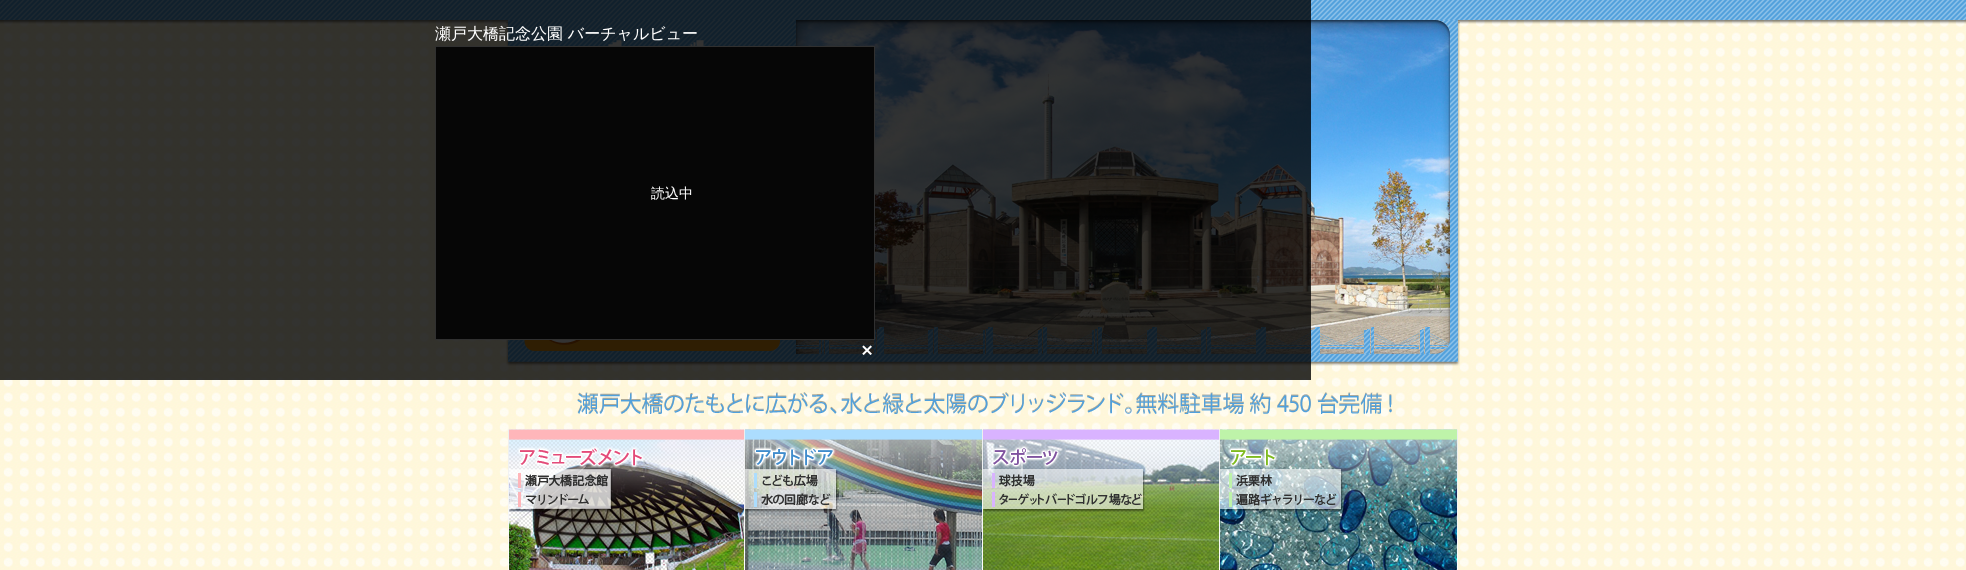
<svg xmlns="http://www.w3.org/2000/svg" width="1966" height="570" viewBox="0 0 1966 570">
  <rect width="100%" height="100%" fill="#ffffff"/>
  <image x="0" y="20" width="1966" height="550" href="img1.png"/>
  <image x="0" y="0" width="1966" height="24" href="img2.png"/>
  <image x="796" y="20" width="654" height="334" href="img4.png"/>
  <image x="506" y="20" width="954" height="346" href="img3.png"/>
  <image x="608" y="40" width="96" height="6" href="img5.png"/>
  <image x="524" y="340" width="256" height="11" href="img6.png"/>
  <image x="577" y="392" width="815" height="22" href="img7.png"/>
  <image x="508" y="429" width="237" height="141" href="img8.png"/>
  <image x="745" y="429" width="238" height="141" href="img9.png"/>
  <image x="983" y="429" width="237" height="141" href="img10.png"/>
  <image x="1220" y="429" width="238" height="141" href="img11.png"/>
  <rect x="0" y="0" width="1311" height="380" fill="#000000" fill-opacity="0.8"/>
  <text x="435" y="39" font-family="WenQuanYi Zen Hei" font-size="16" font-weight="500" fill="#ffffff">瀬戸大橋記念公園 バーチャルビュー</text>
  <rect x="435.5" y="46.5" width="439" height="293" fill="none" stroke="#303030"/>
  <rect x="436" y="47" width="438" height="292" fill="#060606"/>
  <text x="651" y="198" font-family="WenQuanYi Zen Hei" font-size="14" font-weight="500" fill="#ffffff">読込中</text>
  <image x="862" y="345" width="10" height="10" href="img12.png"/>
</svg>
